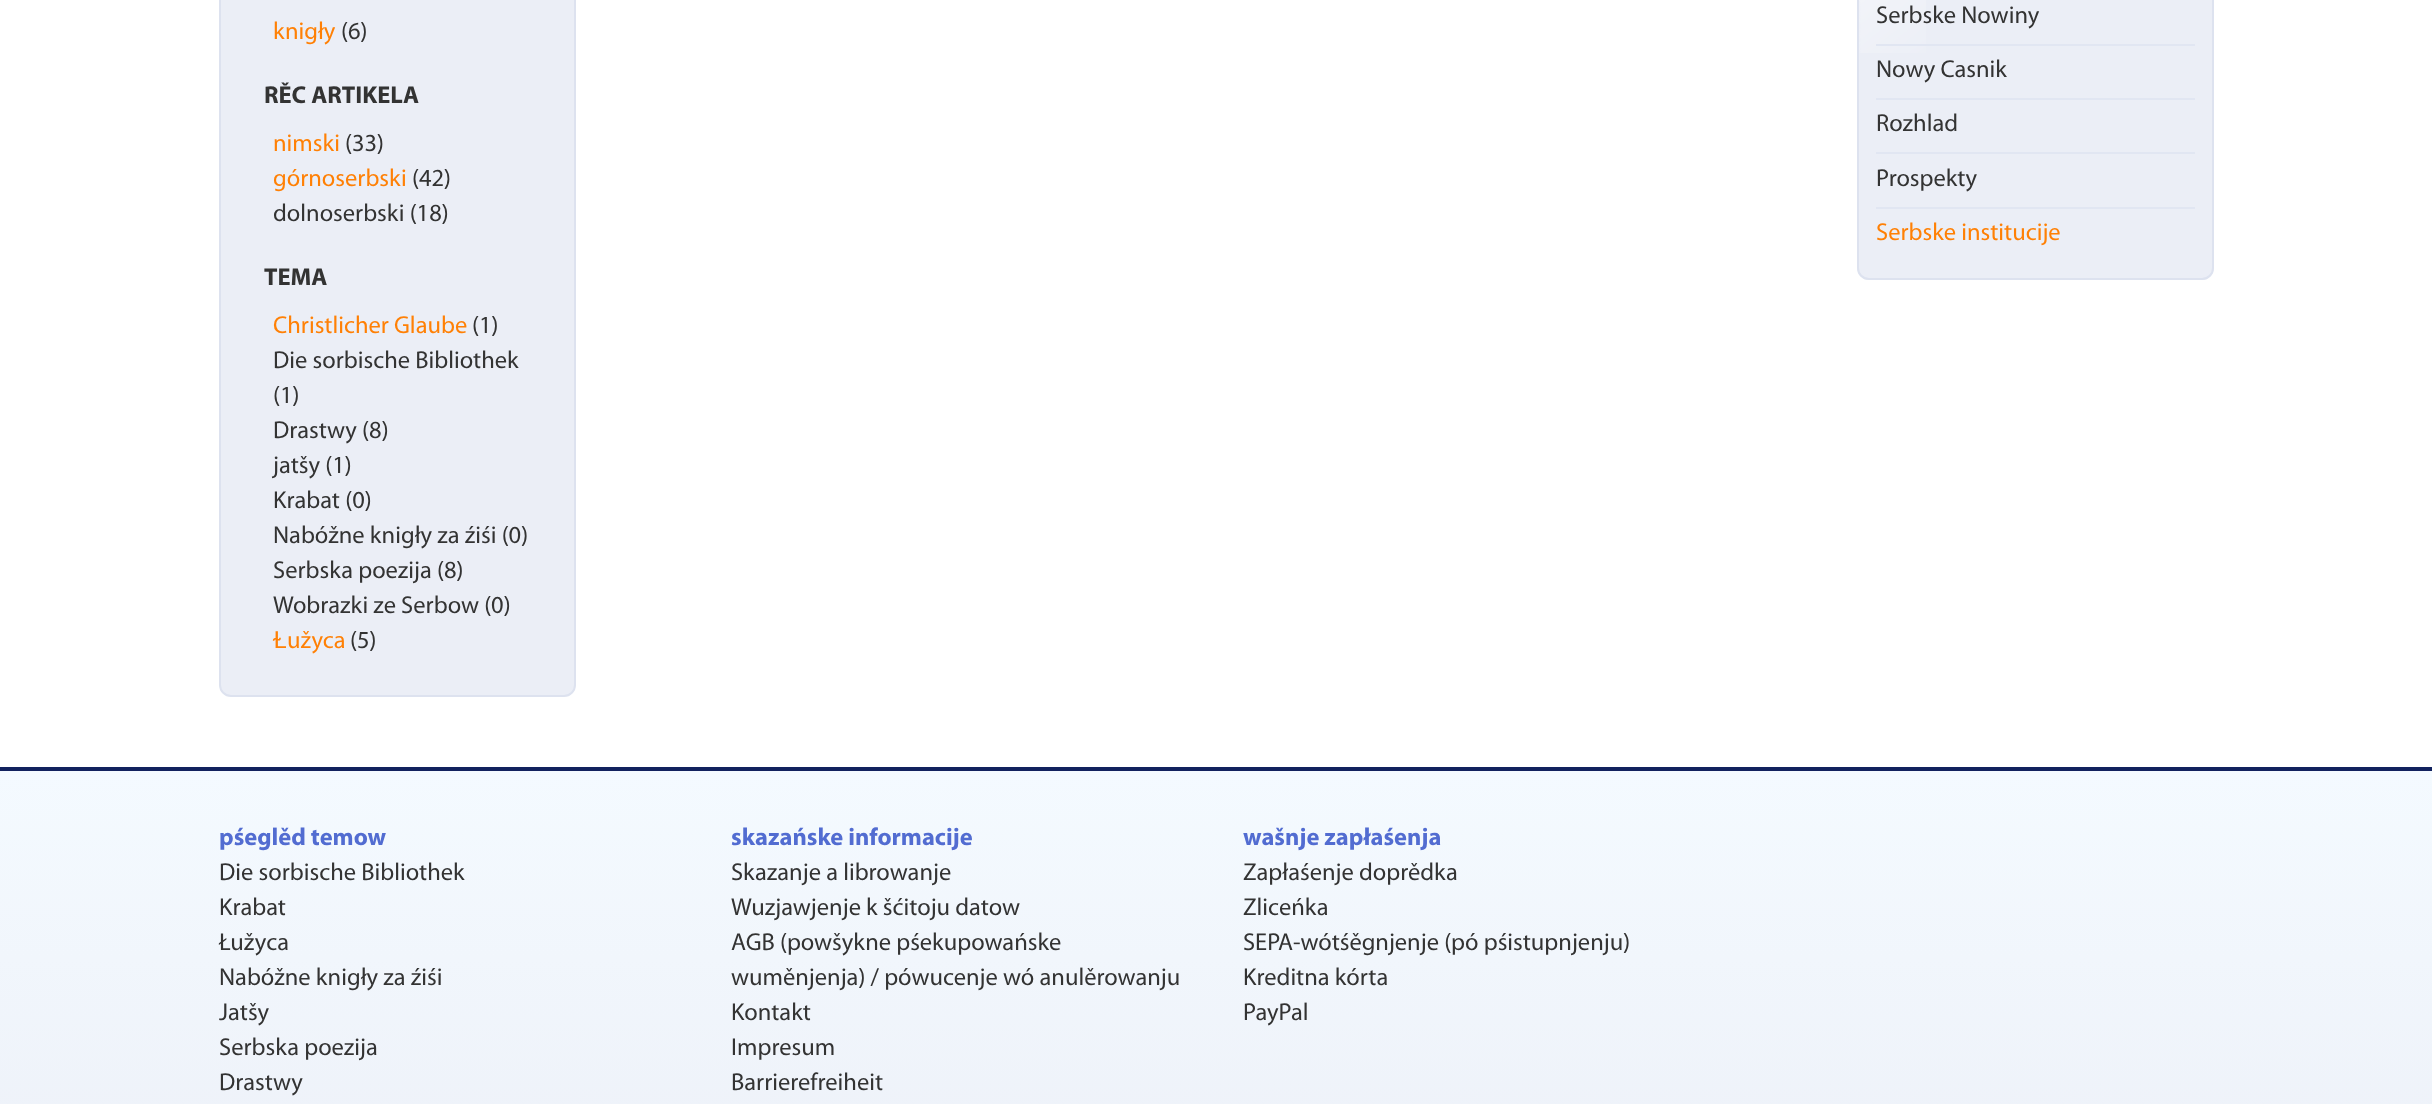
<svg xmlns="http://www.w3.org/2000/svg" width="2432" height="1104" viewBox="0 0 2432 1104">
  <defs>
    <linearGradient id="g1" gradientUnits="userSpaceOnUse" x1="1216" y1="770" x2="1216" y2="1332"><stop offset="0" stop-color="#f4faff"/><stop offset="1" stop-color="#ebeef6"/></linearGradient>
  </defs>
  <rect width="100%" height="100%" fill="#ffffff"/>
  <rect x="220" y="-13" width="355" height="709" rx="11" fill="#ebeef6" stroke="#dde2ef" stroke-width="2"/>
  <text x="273" y="39" font-family="Myriad" font-size="24.5" fill="#ff8005">knigły</text>
  <text x="341" y="39" font-family="Myriad" font-size="24.5" fill="#333333">(6)</text>
  <text x="264" y="103" font-family="Myriad" font-size="24.5" font-weight="bold" fill="#333333">RĚC ARTIKELA</text>
  <text x="273" y="151" font-family="Myriad" font-size="24.5" fill="#ff8005">nimski</text>
  <text x="345" y="151" font-family="Myriad" font-size="24.5" fill="#333333">(33)</text>
  <text x="273" y="186" font-family="Myriad" font-size="24.5" fill="#ff8005">górnoserbski</text>
  <text x="412" y="186" font-family="Myriad" font-size="24.5" fill="#333333">(42)</text>
  <text x="273" y="221" font-family="Myriad" font-size="24.5" fill="#333333">dolnoserbski (18)</text>
  <text x="264" y="285" font-family="Myriad" font-size="24.5" font-weight="bold" fill="#333333">TEMA</text>
  <text x="273" y="333" font-family="Myriad" font-size="24.5" fill="#ff8005">Christlicher Glaube</text>
  <text x="472" y="333" font-family="Myriad" font-size="24.5" fill="#333333">(1)</text>
  <text x="273" y="368" font-family="Myriad" font-size="24.5" fill="#333333">Die sorbische Bibliothek</text>
  <text x="273" y="403" font-family="Myriad" font-size="24.5" fill="#333333">(1)</text>
  <text x="273" y="438" font-family="Myriad" font-size="24.5" fill="#333333">Drastwy (8)</text>
  <text x="273" y="473" font-family="Myriad" font-size="24.5" fill="#333333">jatšy (1)</text>
  <text x="273" y="508" font-family="Myriad" font-size="24.5" fill="#333333">Krabat (0)</text>
  <text x="273" y="543" font-family="Myriad" font-size="24.5" fill="#333333">Nabóžne knigły za źiśi (0)</text>
  <text x="273" y="578" font-family="Myriad" font-size="24.5" fill="#333333">Serbska poezija (8)</text>
  <text x="273" y="613" font-family="Myriad" font-size="24.5" fill="#333333">Wobrazki ze Serbow (0)</text>
  <text x="273" y="648" font-family="Liberation Sans" font-size="24.5" fill="#ff8005">Ɫ</text>
  <text x="287" y="648" font-family="Myriad" font-size="24.5" fill="#ff8005">užyca</text>
  <text x="350" y="648" font-family="Myriad" font-size="24.5" fill="#333333">(5)</text>
  <rect x="1857" y="-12" width="357" height="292" rx="12" fill="#ebeef6"/>
  <image x="1859" y="0" width="67" height="53" href="img1.png"/>
  <rect x="1858" y="-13" width="355" height="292" rx="11" fill="none" stroke="#dde2ef" stroke-width="2"/>
  <rect x="1876" y="44" width="319" height="2" fill="#e1e6f2"/>
  <text x="1876" y="23" font-family="Myriad" font-size="24.5" fill="#333333">Serbske Nowiny</text>
  <rect x="1876" y="98" width="319" height="2" fill="#e1e6f2"/>
  <text x="1876" y="77" font-family="Myriad" font-size="24.5" fill="#333333">Nowy Casnik</text>
  <rect x="1876" y="152" width="319" height="2" fill="#e1e6f2"/>
  <text x="1876" y="131" font-family="Myriad" font-size="24.5" fill="#333333">Rozhlad</text>
  <rect x="1876" y="207" width="319" height="2" fill="#e1e6f2"/>
  <text x="1876" y="186" font-family="Myriad" font-size="24.5" fill="#333333">Prospekty</text>
  <text x="1876" y="240" font-family="Myriad" font-size="24.5" fill="#ff8005">Serbske institucije</text>
  <rect x="0" y="771" width="2432" height="333" fill="url(#g1)"/>
  <rect x="0" y="767" width="2432" height="4" fill="#12225e"/>
  <text x="219" y="845" font-family="Myriad" font-size="24.5" font-weight="bold" fill="#526cd1">pśeglěd temow</text>
  <text x="219" y="880" font-family="Myriad" font-size="24.5" fill="#333333">Die sorbische Bibliothek</text>
  <text x="219" y="915" font-family="Myriad" font-size="24.5" fill="#333333">Krabat</text>
  <text x="219" y="950" font-family="Myriad" font-size="24.5" fill="#333333">Łužyca</text>
  <text x="219" y="985" font-family="Myriad" font-size="24.5" fill="#333333">Nabóžne knigły za źiśi</text>
  <text x="219" y="1020" font-family="Myriad" font-size="24.5" fill="#333333">Jatšy</text>
  <text x="219" y="1055" font-family="Myriad" font-size="24.5" fill="#333333">Serbska poezija</text>
  <text x="219" y="1090" font-family="Myriad" font-size="24.5" fill="#333333">Drastwy</text>
  <text x="731" y="845" font-family="Myriad" font-size="24.5" font-weight="bold" fill="#526cd1">skazańske informacije</text>
  <text x="731" y="880" font-family="Myriad" font-size="24.5" fill="#333333">Skazanje a librowanje</text>
  <text x="731" y="915" font-family="Myriad" font-size="24.5" fill="#333333">Wuzjawjenje k šćitoju datow</text>
  <text x="731" y="950" font-family="Myriad" font-size="24.5" fill="#333333">AGB (powšykne pśekupowańske</text>
  <text x="731" y="985" font-family="Myriad" font-size="24.5" fill="#333333">wuměnjenja) / pówucenje wó anulěrowanju</text>
  <text x="731" y="1020" font-family="Myriad" font-size="24.5" fill="#333333">Kontakt</text>
  <text x="731" y="1055" font-family="Myriad" font-size="24.5" fill="#333333">Impresum</text>
  <text x="731" y="1090" font-family="Myriad" font-size="24.5" fill="#333333">Barrierefreiheit</text>
  <text x="1243" y="845" font-family="Myriad" font-size="24.5" font-weight="bold" fill="#526cd1">wašnje zapłaśenja</text>
  <text x="1243" y="880" font-family="Myriad" font-size="24.5" fill="#333333">Zapłaśenje doprědka</text>
  <text x="1243" y="915" font-family="Myriad" font-size="24.5" fill="#333333">Zliceńka</text>
  <text x="1243" y="950" font-family="Myriad" font-size="24.5" fill="#333333">SEPA-wótśěgnjenje (pó pśistupnjenju)</text>
  <text x="1243" y="985" font-family="Myriad" font-size="24.5" fill="#333333">Kreditna kórta</text>
  <text x="1243" y="1020" font-family="Myriad" font-size="24.5" fill="#333333">PayPal</text>
</svg>
